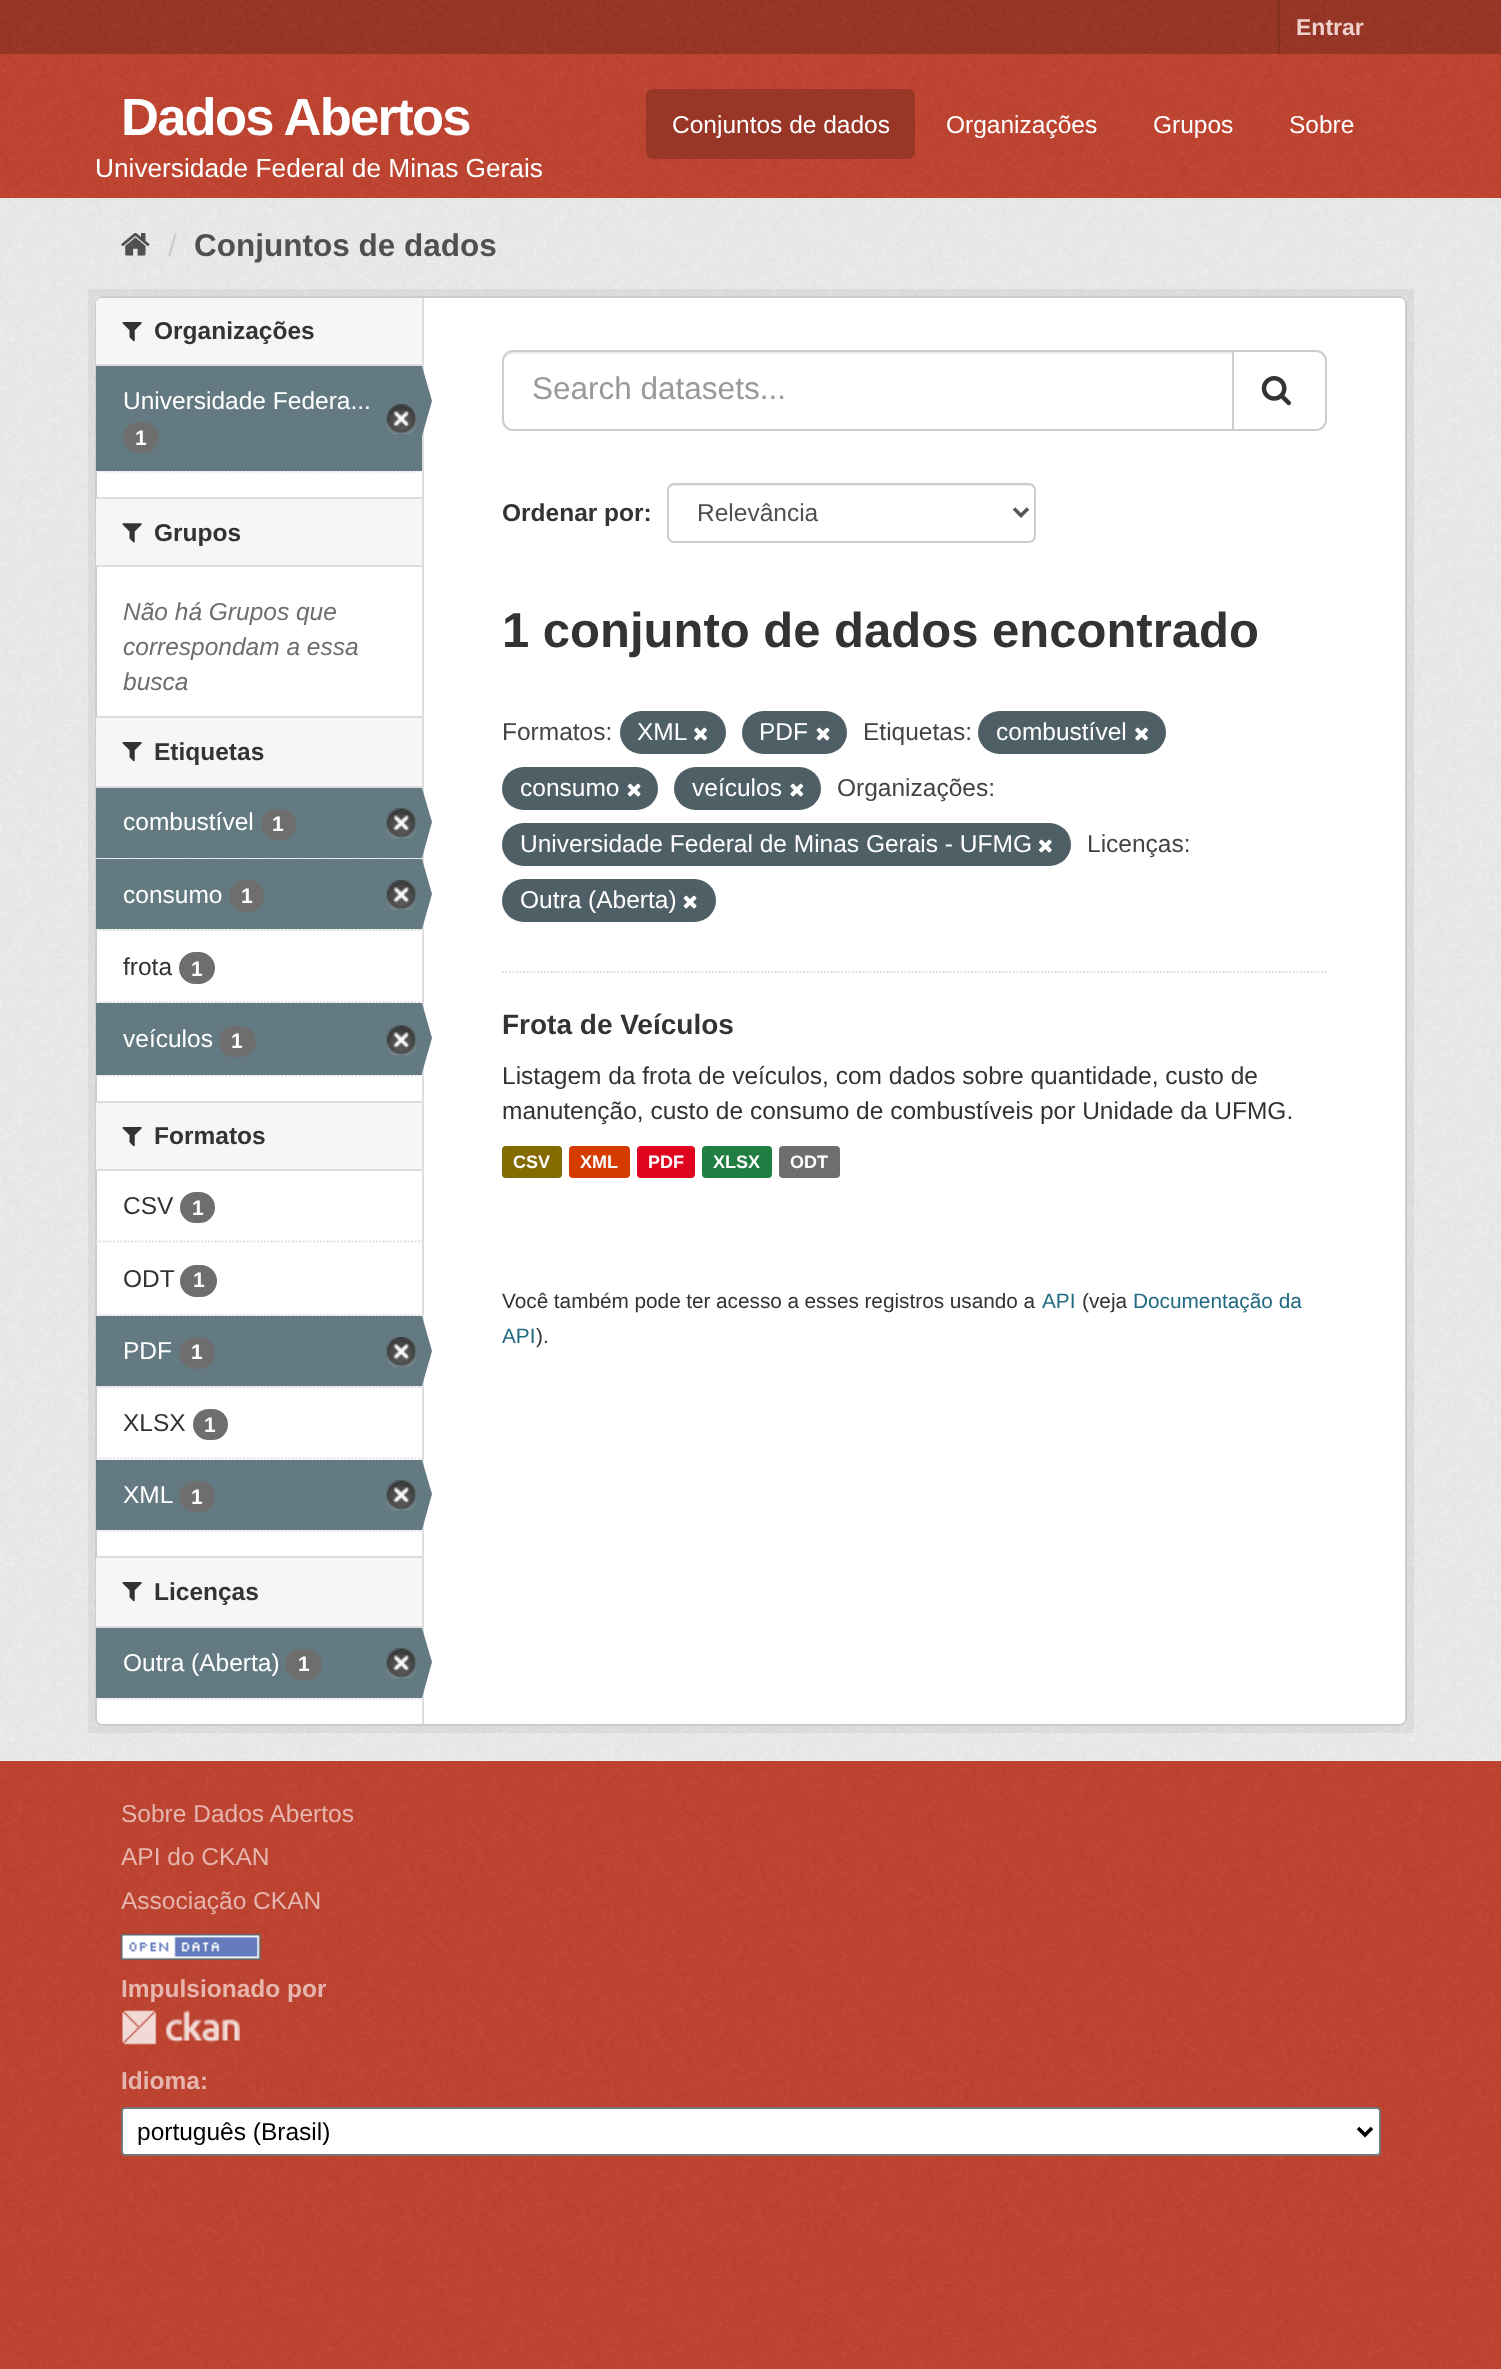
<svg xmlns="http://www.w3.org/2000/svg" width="1501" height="2369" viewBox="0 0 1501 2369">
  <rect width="100%" height="100%" fill="#c14531"/>
  <image x="0" y="2191" width="1501" height="178" href="img1.png"/>
  <rect x="0" y="0" width="1501" height="54" fill="#983627"/>
  <image x="0" y="0" width="1501" height="54" href="img2.png"/>
  <rect x="1278" y="0" width="2" height="54" fill="#842f22"/>
  <text x="1296" y="35" font-family="Liberation Sans" font-size="23" font-weight="bold" fill="#f0d1cc">Entrar</text>
  <image x="0" y="54" width="1501" height="144" href="img3.png"/>
  <text x="121" y="135" font-family="Liberation Sans" font-size="52.5" font-weight="bold" letter-spacing="-1.75" fill="#ffffff">Dados Abertos</text>
  <text x="95" y="177" font-family="Liberation Sans" font-size="26.25" fill="#ffffff">Universidade Federal de Minas Gerais</text>
  <rect x="646" y="89" width="269" height="70" rx="7" fill="#983627"/>
  <text x="672" y="133" font-family="Liberation Sans" font-size="24.5" fill="#ffffff">Conjuntos de dados</text>
  <text x="946" y="133" font-family="Liberation Sans" font-size="24.5" fill="#ffffff">Organizações</text>
  <text x="1153" y="133" font-family="Liberation Sans" font-size="24.5" fill="#ffffff">Grupos</text>
  <text x="1289" y="133" font-family="Liberation Sans" font-size="24.5" fill="#ffffff">Sobre</text>
  <rect x="0" y="198" width="1501" height="1563" fill="#eeeeee"/>
  <image x="0" y="198" width="1501" height="1562" href="img4.png"/>
  <image x="121" y="233" width="29" height="23" href="img5.png"/>
  <text x="168" y="256" font-family="Liberation Sans" font-size="31.5" fill="#cccccc">/</text>
  <text x="194" y="256" font-family="Liberation Sans" font-size="31.5" font-weight="bold" fill="#505050">Conjuntos de dados</text>
  <rect x="91.5" y="292.5" width="1319" height="1437" fill="none" stroke="#000000" stroke-opacity="0.05" stroke-width="7"/>
  <rect x="96" y="297" width="1310" height="1428" rx="6" fill="#ffffff" stroke="#cccccc" stroke-width="2"/>
  <path d="M101 298H422V366H96V303C96 300 98 298 101 298Z" fill="#f6f6f6"/>
  <rect x="96" y="364" width="326" height="2" fill="#dddddd"/>
  <image x="122" y="322" width="20" height="20" href="img6.png"/>
  <text x="154" y="339" font-family="Liberation Sans" font-size="24.5" font-weight="bold" fill="#333333">Organizações</text>
  <path d="M96 471.5H422" fill="none" stroke="#dddddd" stroke-width="1.8" stroke-dasharray="1.75 1.75"/>
  <rect x="96" y="366" width="326" height="105" fill="#647a82"/>
  <text x="123" y="409" font-family="Liberation Sans" font-size="24.5" fill="#ffffff">Universidade Federa...</text>
  <rect x="422" y="298" width="2" height="1426" fill="#dddddd"/>
  <path d="M422 436V366L432 401Z" fill="#647a82"/>
  <image x="386" y="404" width="31" height="30" href="img7.png"/>
  <rect x="123" y="422" width="36" height="31" rx="15.5" fill="#6e6e6e"/>
  <text x="135" y="445" font-family="Liberation Sans" font-size="21" font-weight="bold" fill="#ffffff">1</text>
  <rect x="96" y="499" width="326" height="66" fill="#f6f6f6"/>
  <rect x="96" y="497" width="326" height="2" fill="#dddddd"/>
  <rect x="96" y="565" width="326" height="2" fill="#dddddd"/>
  <image x="122" y="523" width="20" height="20" href="img8.png"/>
  <text x="154" y="541" font-family="Liberation Sans" font-size="24.5" font-weight="bold" fill="#333333">Grupos</text>
  <text x="123" y="620" font-family="Liberation Sans" font-size="24.5" font-style="italic" fill="#6e6e6e">Não há Grupos que</text>
  <text x="123" y="655" font-family="Liberation Sans" font-size="24.5" font-style="italic" fill="#6e6e6e">correspondam a essa</text>
  <text x="123" y="690" font-family="Liberation Sans" font-size="24.5" font-style="italic" fill="#6e6e6e">busca</text>
  <rect x="96" y="718" width="326" height="68" fill="#f6f6f6"/>
  <rect x="96" y="716" width="326" height="2" fill="#dddddd"/>
  <rect x="96" y="786" width="326" height="2" fill="#dddddd"/>
  <image x="122" y="742" width="20" height="20" href="img6.png"/>
  <text x="154" y="760" font-family="Liberation Sans" font-size="24.5" font-weight="bold" fill="#333333">Etiquetas</text>
  <rect x="97" y="858" width="325" height="1" fill="#f6f6f6"/>
  <path d="M96 858.5H422" fill="none" stroke="#dddddd" stroke-width="1.8" stroke-dasharray="1.75 1.75"/>
  <rect x="96" y="788" width="326" height="70" fill="#647a82"/>
  <text x="123" y="830" font-family="Liberation Sans" font-size="24.5" fill="#ffffff">combustível</text>
  <rect x="261" y="809" width="35" height="31" rx="15.5" fill="#6e6e6e"/>
  <text x="272" y="831" font-family="Liberation Sans" font-size="21" font-weight="bold" fill="#ffffff">1</text>
  <image x="386" y="808" width="31" height="31" href="img9.png"/>
  <path d="M422 858V788L432 822Z" fill="#647a82"/>
  <rect x="96" y="929" width="326" height="2" fill="#f6f6f6"/>
  <path d="M96 930H422" fill="none" stroke="#dddddd" stroke-width="1.8" stroke-dasharray="1.75 1.75"/>
  <rect x="96" y="859" width="326" height="70" fill="#647a82"/>
  <text x="123" y="903" font-family="Liberation Sans" font-size="24.5" fill="#ffffff">consumo</text>
  <rect x="229" y="880" width="35" height="32" rx="16" fill="#6e6e6e"/>
  <text x="241" y="903" font-family="Liberation Sans" font-size="21" font-weight="bold" fill="#ffffff">1</text>
  <image x="386" y="880" width="31" height="30" href="img7.png"/>
  <path d="M422 929V859L432 894Z" fill="#647a82"/>
  <path d="M96 1002H422" fill="none" stroke="#dddddd" stroke-width="1.8" stroke-dasharray="1.75 1.75"/>
  <text x="123" y="975" font-family="Liberation Sans" font-size="24.5" fill="#333333">frota</text>
  <rect x="179" y="952" width="36" height="32" rx="16" fill="#6e6e6e"/>
  <text x="191" y="976" font-family="Liberation Sans" font-size="21" font-weight="bold" fill="#ffffff">1</text>
  <path d="M96 1075.5H422" fill="none" stroke="#dddddd" stroke-width="1.8" stroke-dasharray="1.75 1.75"/>
  <rect x="96" y="1003" width="326" height="72" fill="#647a82"/>
  <text x="123" y="1047" font-family="Liberation Sans" font-size="24.5" fill="#ffffff">veículos</text>
  <rect x="219" y="1026" width="37" height="31" rx="15.5" fill="#6e6e6e"/>
  <text x="231" y="1048" font-family="Liberation Sans" font-size="21" font-weight="bold" fill="#ffffff">1</text>
  <image x="386" y="1025" width="31" height="31" href="img9.png"/>
  <path d="M422 1073V1003L432 1038Z" fill="#647a82"/>
  <rect x="96" y="1103" width="326" height="66" fill="#f6f6f6"/>
  <rect x="96" y="1101" width="326" height="2" fill="#dddddd"/>
  <rect x="96" y="1169" width="326" height="2" fill="#dddddd"/>
  <image x="122" y="1127" width="20" height="20" href="img6.png"/>
  <text x="154" y="1144" font-family="Liberation Sans" font-size="24.5" font-weight="bold" fill="#333333">Formatos</text>
  <path d="M96 1241.5H422" fill="none" stroke="#dddddd" stroke-width="1.8" stroke-dasharray="1.75 1.75"/>
  <text x="123" y="1214" font-family="Liberation Sans" font-size="24.5" fill="#333333">CSV</text>
  <rect x="180" y="1192" width="35" height="31" rx="15.5" fill="#6e6e6e"/>
  <text x="192" y="1215" font-family="Liberation Sans" font-size="21" font-weight="bold" fill="#ffffff">1</text>
  <path d="M96 1315H422" fill="none" stroke="#dddddd" stroke-width="1.8" stroke-dasharray="1.75 1.75"/>
  <text x="123" y="1287" font-family="Liberation Sans" font-size="24.5" fill="#333333">ODT</text>
  <rect x="180" y="1265" width="37" height="32" rx="16" fill="#6e6e6e"/>
  <text x="193" y="1287" font-family="Liberation Sans" font-size="21" font-weight="bold" fill="#ffffff">1</text>
  <rect x="96" y="1386" width="326" height="2" fill="#f6f6f6"/>
  <path d="M96 1387H422" fill="none" stroke="#dddddd" stroke-width="1.8" stroke-dasharray="1.75 1.75"/>
  <rect x="96" y="1316" width="326" height="70" fill="#647a82"/>
  <text x="123" y="1359" font-family="Liberation Sans" font-size="24.5" fill="#ffffff">PDF</text>
  <rect x="179" y="1337" width="36" height="32" rx="16" fill="#6e6e6e"/>
  <text x="191" y="1359" font-family="Liberation Sans" font-size="21" font-weight="bold" fill="#ffffff">1</text>
  <image x="386" y="1337" width="31" height="30" href="img10.png"/>
  <path d="M422 1386V1316L432 1351Z" fill="#647a82"/>
  <path d="M96 1458.5H422" fill="none" stroke="#dddddd" stroke-width="1.8" stroke-dasharray="1.75 1.75"/>
  <text x="123" y="1431" font-family="Liberation Sans" font-size="24.5" fill="#333333">XLSX</text>
  <rect x="193" y="1409" width="35" height="31" rx="15.5" fill="#6e6e6e"/>
  <text x="204" y="1432" font-family="Liberation Sans" font-size="21" font-weight="bold" fill="#ffffff">1</text>
  <path d="M96 1530.5H422" fill="none" stroke="#dddddd" stroke-width="1.8" stroke-dasharray="1.75 1.75"/>
  <rect x="96" y="1460" width="326" height="70" fill="#647a82"/>
  <text x="123" y="1503" font-family="Liberation Sans" font-size="24.5" fill="#ffffff">XML</text>
  <rect x="179" y="1481" width="36" height="31" rx="15.5" fill="#6e6e6e"/>
  <text x="191" y="1504" font-family="Liberation Sans" font-size="21" font-weight="bold" fill="#ffffff">1</text>
  <image x="386" y="1480" width="31" height="31" href="img9.png"/>
  <path d="M422 1530V1460L432 1494Z" fill="#647a82"/>
  <rect x="96" y="1558" width="326" height="68" fill="#f6f6f6"/>
  <rect x="96" y="1556" width="326" height="2" fill="#dddddd"/>
  <rect x="96" y="1626" width="326" height="2" fill="#dddddd"/>
  <image x="122" y="1582" width="20" height="20" href="img6.png"/>
  <text x="154" y="1600" font-family="Liberation Sans" font-size="24.5" font-weight="bold" fill="#333333">Licenças</text>
  <path d="M96 1698.5H422" fill="none" stroke="#dddddd" stroke-width="1.8" stroke-dasharray="1.75 1.75"/>
  <rect x="96" y="1628" width="326" height="70" fill="#647a82"/>
  <text x="123" y="1671" font-family="Liberation Sans" font-size="24.5" fill="#ffffff">Outra (Aberta)</text>
  <rect x="285" y="1649" width="37" height="31" rx="15.5" fill="#6e6e6e"/>
  <text x="298" y="1671" font-family="Liberation Sans" font-size="21" font-weight="bold" fill="#ffffff">1</text>
  <image x="386" y="1648" width="31" height="31" href="img9.png"/>
  <path d="M422 1698V1628L432 1662Z" fill="#647a82"/>
  <path d="M502 972H1326.5" fill="none" stroke="#dddddd" stroke-width="1.8" stroke-dasharray="1.75 1.75"/>
  <path d="M513 354H1232V352H513C508 352 504 356 504 361V362C504 357 508 354 513 354Z" fill="#ececec"/>
  <path d="M513 351H1233V430H513C507.5 430 503 425.5 503 420V361C503 355.5 507.5 351 513 351Z" fill="none" stroke="#cccccc" stroke-width="2"/>
  <text x="532" y="399" font-family="Liberation Sans" font-size="31.5" fill="#999999">Search datasets...</text>
  <path d="M1233 351H1316C1321.5 351 1326 355.5 1326 361V420C1326 425.5 1321.5 430 1316 430H1233Z" fill="#ffffff" stroke="#cccccc" stroke-width="2"/>
  <image x="1261" y="376" width="30" height="30" href="img11.png"/>
  <text x="502" y="521" font-family="Liberation Sans" font-size="24.5" font-weight="bold" fill="#333333">Ordenar por:</text>
  <path d="M674 486H1029C1032 486 1034 489 1034 492C1034 489 1033 485 1029 485H674C672 485 670 487 669 489C670 487 672 486 674 486Z" fill="#ececec"/>
  <rect x="668" y="484" width="367" height="58" rx="6" fill="none" stroke="#cccccc" stroke-width="2"/>
  <path d="M1014 508.5L1021 515.5L1028 508.5" fill="none" stroke="#555555" stroke-width="3.5"/>
  <text x="697" y="521" font-family="Liberation Sans" font-size="24.5" fill="#505050">Relevância</text>
  <text x="502" y="647" font-family="Liberation Sans" font-size="49" font-weight="bold" fill="#333333">1 conjunto de dados encontrado</text>
  <text x="502" y="740" font-family="Liberation Sans" font-size="24.5" fill="#444444">Formatos:</text>
  <rect x="620" y="711" width="106" height="43" rx="21.5" fill="#4e5f65"/>
  <text x="637" y="740" font-family="Liberation Sans" font-size="24.5" fill="#ffffff">XML</text>
  <image x="694" y="727" width="13" height="14" href="img12.png"/>
  <rect x="742" y="711" width="105" height="43" rx="21.5" fill="#4e5f65"/>
  <text x="759" y="740" font-family="Liberation Sans" font-size="24.5" fill="#ffffff">PDF</text>
  <image x="816" y="727" width="14" height="14" href="img13.png"/>
  <text x="863" y="740" font-family="Liberation Sans" font-size="24.5" fill="#444444">Etiquetas:</text>
  <rect x="978" y="711" width="188" height="43" rx="21.5" fill="#4e5f65"/>
  <text x="996" y="740" font-family="Liberation Sans" font-size="24.5" fill="#ffffff">combustível</text>
  <image x="1135" y="727" width="13" height="14" href="img12.png"/>
  <rect x="502" y="767" width="156" height="43" rx="21.5" fill="#4e5f65"/>
  <text x="520" y="796" font-family="Liberation Sans" font-size="24.5" fill="#ffffff">consumo</text>
  <image x="627" y="783" width="14" height="14" href="img13.png"/>
  <rect x="674" y="767" width="147" height="43" rx="21.5" fill="#4e5f65"/>
  <text x="692" y="796" font-family="Liberation Sans" font-size="24.5" fill="#ffffff">veículos</text>
  <image x="790" y="783" width="14" height="14" href="img14.png"/>
  <text x="837" y="796" font-family="Liberation Sans" font-size="24.5" fill="#444444">Organizações:</text>
  <rect x="502" y="823" width="569" height="43" rx="21.5" fill="#4e5f65"/>
  <text x="520" y="852" font-family="Liberation Sans" font-size="24.5" fill="#ffffff">Universidade Federal de Minas Gerais - UFMG</text>
  <image x="1038" y="839" width="14" height="14" href="img15.png"/>
  <text x="1087" y="852" font-family="Liberation Sans" font-size="24.5" fill="#444444">Licenças:</text>
  <rect x="502" y="879" width="214" height="43" rx="21.5" fill="#4e5f65"/>
  <text x="520" y="908" font-family="Liberation Sans" font-size="24.5" fill="#ffffff">Outra (Aberta)</text>
  <image x="683" y="895" width="14" height="14" href="img16.png"/>
  <text x="502" y="1034" font-family="Liberation Sans" font-size="28" font-weight="bold" fill="#333333">Frota de Veículos</text>
  <text x="502" y="1084" font-family="Liberation Sans" font-size="24.5" fill="#333333">Listagem da frota de veículos, com dados sobre quantidade, custo de</text>
  <text x="502" y="1119" font-family="Liberation Sans" font-size="24.5" fill="#333333">manutenção, custo de consumo de combustíveis por Unidade da UFMG.</text>
  <rect x="502" y="1146" width="60" height="32" rx="4" fill="#856a00"/>
  <text x="513" y="1168" font-family="Liberation Sans" font-size="18" font-weight="bold" fill="#ffffff">CSV</text>
  <rect x="569" y="1146" width="61" height="32" rx="4" fill="#d63b00"/>
  <text x="580" y="1168" font-family="Liberation Sans" font-size="18" font-weight="bold" fill="#ffffff">XML</text>
  <rect x="637" y="1146" width="58" height="32" rx="4" fill="#e0051e"/>
  <text x="648" y="1168" font-family="Liberation Sans" font-size="18" font-weight="bold" fill="#ffffff">PDF</text>
  <rect x="702" y="1146" width="70" height="32" rx="4" fill="#207e42"/>
  <text x="713" y="1168" font-family="Liberation Sans" font-size="18" font-weight="bold" fill="#ffffff">XLSX</text>
  <rect x="779" y="1146" width="61" height="32" rx="4" fill="#6e6e6e"/>
  <text x="790" y="1168" font-family="Liberation Sans" font-size="18" font-weight="bold" fill="#ffffff">ODT</text>
  <text x="502" y="1308" word-spacing="-0.25" font-family="Liberation Sans" font-size="20.8" fill="#333333">Você também pode ter acesso a esses registros usando a</text>
  <text x="1042" y="1308" font-family="Liberation Sans" font-size="20.8" fill="#206b82">API</text>
  <text x="1082" y="1308" font-family="Liberation Sans" font-size="20.8" fill="#333333">(veja</text>
  <text x="1133" y="1308" font-family="Liberation Sans" font-size="20.8" fill="#206b82">Documentação da</text>
  <text x="502" y="1343" font-family="Liberation Sans" font-size="20.8" fill="#206b82">API</text>
  <text x="536" y="1343" font-family="Liberation Sans" font-size="20.8" fill="#333333">).</text>
  <image x="0" y="1761" width="1501" height="430" href="img17.png"/>
  <text x="121" y="1822" font-family="Liberation Sans" font-size="24.5" fill="#e6b5ad">Sobre Dados Abertos</text>
  <text x="121" y="1865" font-family="Liberation Sans" font-size="24.5" fill="#e6b5ad">API do CKAN</text>
  <text x="121" y="1909" font-family="Liberation Sans" font-size="24.5" fill="#e6b5ad">Associação CKAN</text>
  <image x="120" y="1933" width="141" height="27" href="img18.png"/>
  <text x="121" y="1997" font-family="Liberation Sans" font-size="24.5" font-weight="bold" fill="#e6b5ad">Impulsionado por</text>
  <image x="122" y="2010" width="118" height="35" href="img19.png"/>
  <text x="121" y="2089" font-family="Liberation Sans" font-size="24.5" font-weight="bold" fill="#e6b5ad">Idioma:</text>
  <rect x="122" y="2108" width="1258" height="47" rx="3" fill="#ffffff" stroke="#767676" stroke-width="2"/>
  <path d="M1358 2128L1365 2135L1372 2128" fill="none" stroke="#000000" stroke-width="3.5"/>
  <text x="137" y="2140" font-family="Liberation Sans" font-size="24.5" fill="#000000">português (Brasil)</text>
</svg>
